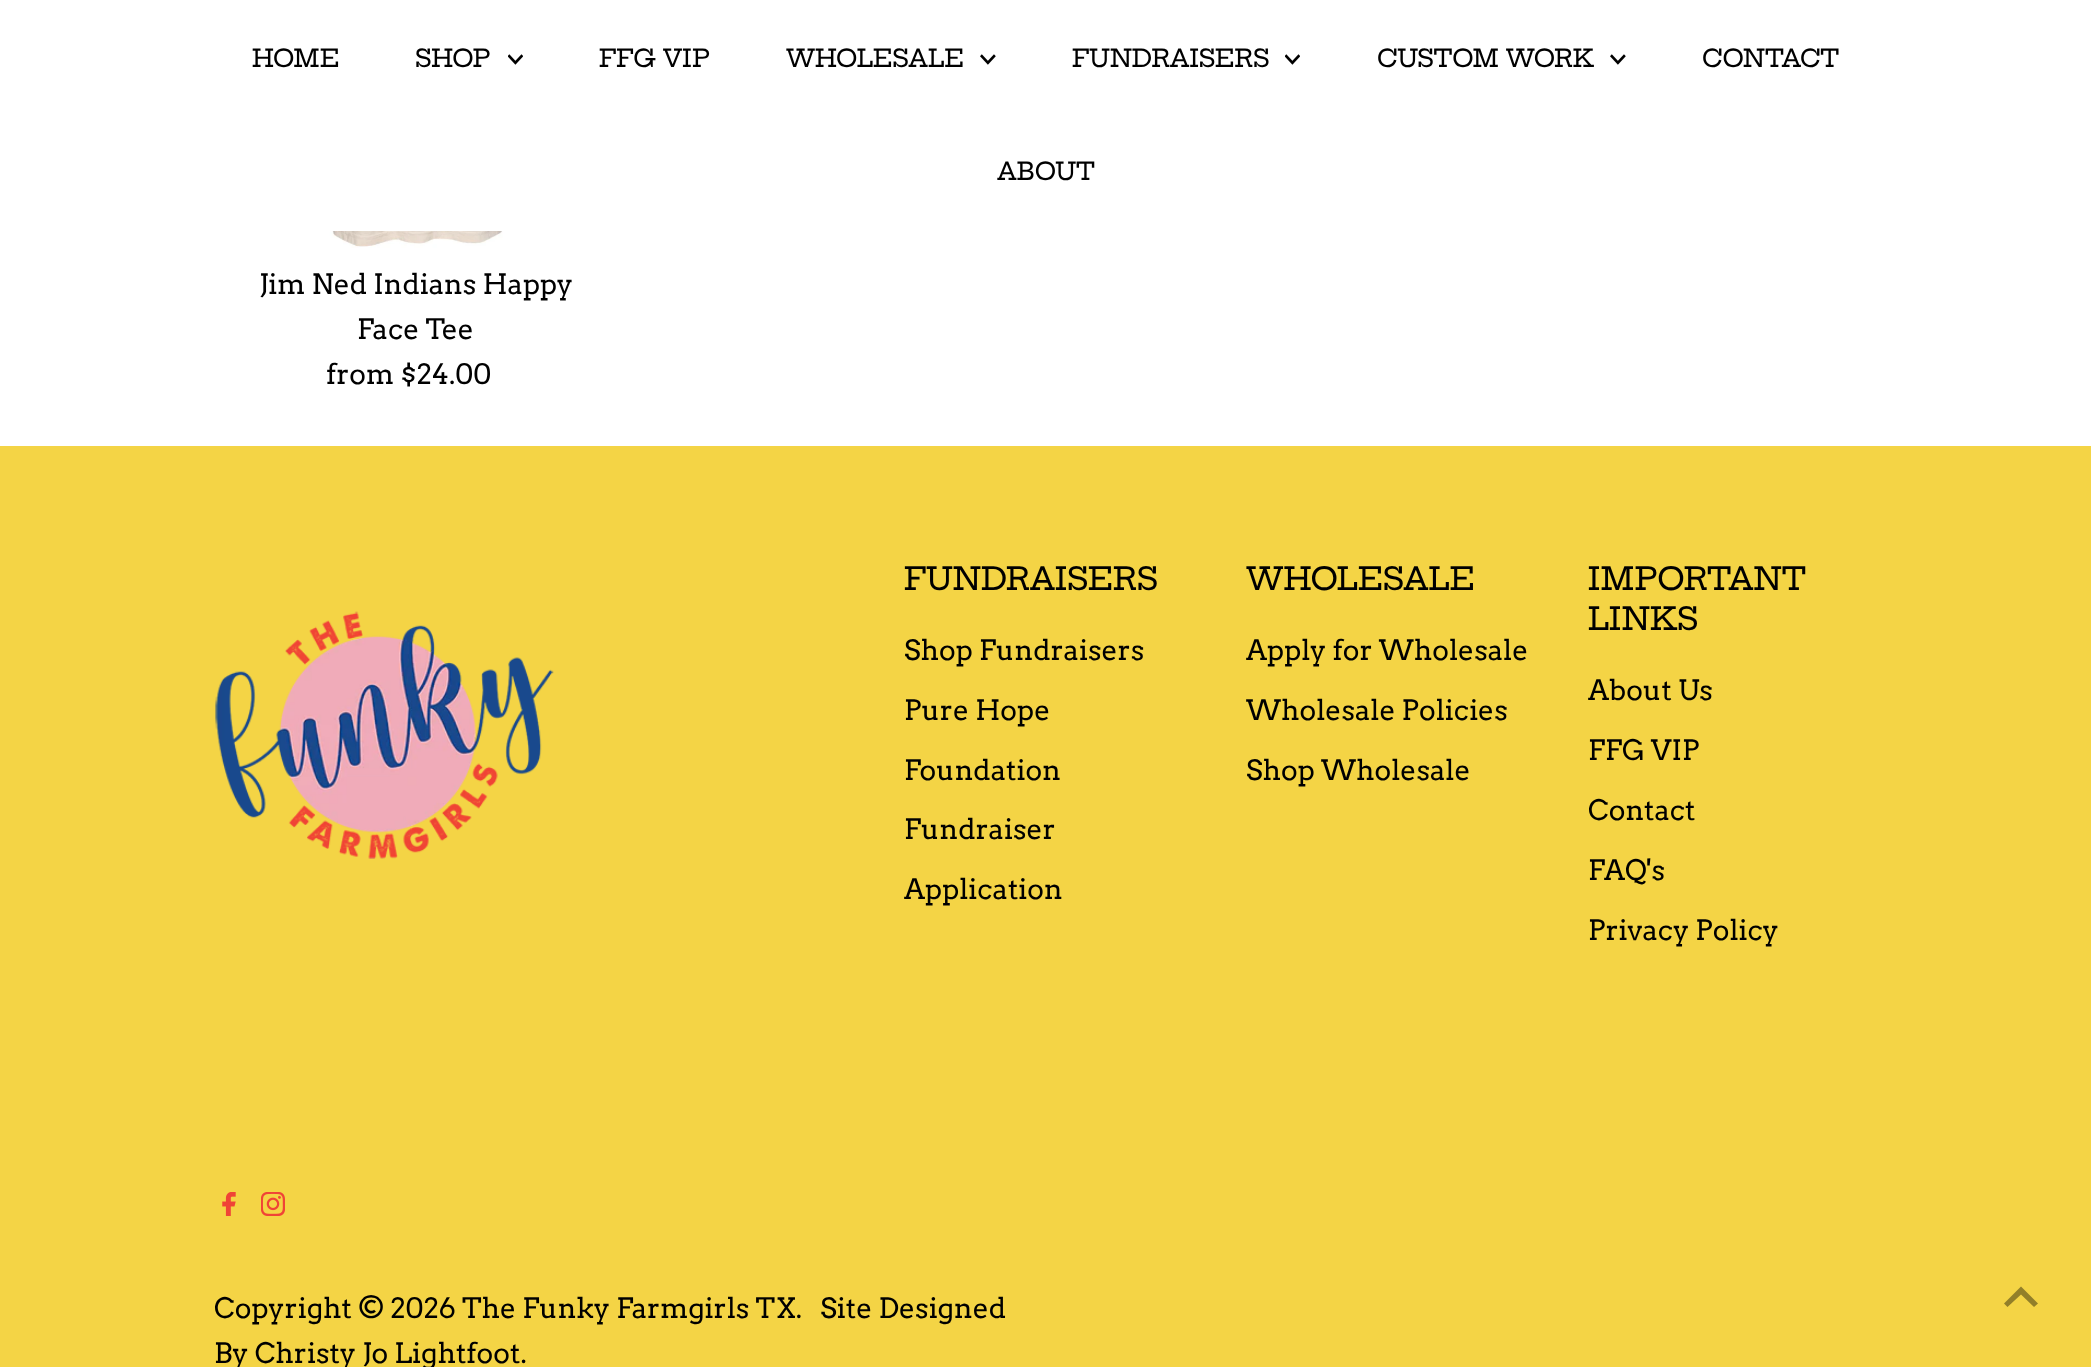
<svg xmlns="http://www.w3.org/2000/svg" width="2091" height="1367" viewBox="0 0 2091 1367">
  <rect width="100%" height="100%" fill="#ffffff"/>
  <text x="252" y="67" font-family="Hepta Slab" font-size="24.5" font-weight="500" fill="#000000">HOME</text>
  <text x="415" y="67" font-family="Hepta Slab" font-size="24.5" font-weight="500" fill="#000000">SHOP</text>
  <image x="508" y="54" width="15" height="11" href="img1.png"/>
  <text x="599" y="67" font-family="Hepta Slab" font-size="24.5" font-weight="500" fill="#000000">FFG VIP</text>
  <text x="786" y="67" font-family="Hepta Slab" font-size="24.5" font-weight="500" fill="#000000">WHOLESALE</text>
  <image x="980" y="54" width="16" height="11" href="img2.png"/>
  <text x="1072" y="67" font-family="Hepta Slab" font-size="24.5" font-weight="500" fill="#000000">FUNDRAISERS</text>
  <image x="1285" y="54" width="15" height="11" href="img1.png"/>
  <text x="1377" y="67" font-family="Hepta Slab" font-size="24.5" font-weight="500" fill="#000000">CUSTOM WORK</text>
  <image x="1610" y="54" width="16" height="11" href="img2.png"/>
  <text x="1702" y="67" font-family="Hepta Slab" font-size="24.5" font-weight="500" fill="#000000">CONTACT</text>
  <text x="997" y="180" font-family="Hepta Slab" font-size="24.5" font-weight="500" fill="#000000">ABOUT</text>
  <image x="241" y="231" width="343" height="17" href="img3.png"/>
  <text x="259" y="294" font-family="Arvo" font-size="28" fill="#000000">Jim Ned Indians Happy</text>
  <text x="357" y="339" font-family="Arvo" font-size="28" fill="#000000">Face Tee</text>
  <text x="326" y="384" font-family="Arvo" font-size="28" fill="#000000">from $24.00</text>
  <rect x="0" y="446" width="2091" height="921" fill="#f4d445"/>
  <image x="215" y="611" width="339" height="248" href="img4.png"/>
  <text x="904" y="590" font-family="Hepta Slab" font-size="31.5" font-weight="500" fill="#000000">FUNDRAISERS</text>
  <text x="904" y="660" font-family="Arvo" font-size="28" fill="#000000">Shop Fundraisers</text>
  <text x="904" y="720" font-family="Arvo" font-size="28" fill="#000000">Pure Hope</text>
  <text x="904" y="780" font-family="Arvo" font-size="28" fill="#000000">Foundation</text>
  <text x="904" y="839" font-family="Arvo" font-size="28" fill="#000000">Fundraiser</text>
  <text x="904" y="899" font-family="Arvo" font-size="28" fill="#000000">Application</text>
  <text x="1246" y="590" font-family="Hepta Slab" font-size="31.5" font-weight="500" fill="#000000">WHOLESALE</text>
  <text x="1246" y="660" font-family="Arvo" font-size="28" fill="#000000">Apply for Wholesale</text>
  <text x="1246" y="720" font-family="Arvo" font-size="28" fill="#000000">Wholesale Policies</text>
  <text x="1246" y="780" font-family="Arvo" font-size="28" fill="#000000">Shop Wholesale</text>
  <text x="1588" y="590" font-family="Hepta Slab" font-size="31.5" font-weight="500" fill="#000000">IMPORTANT</text>
  <text x="1588" y="630" font-family="Hepta Slab" font-size="31.5" font-weight="500" fill="#000000">LINKS</text>
  <text x="1588" y="700" font-family="Arvo" font-size="28" fill="#000000">About Us</text>
  <text x="1588" y="760" font-family="Arvo" font-size="28" fill="#000000">FFG VIP</text>
  <text x="1588" y="820" font-family="Arvo" font-size="28" fill="#000000">Contact</text>
  <text x="1588" y="880" font-family="Arvo" font-size="28" fill="#000000">FAQ's</text>
  <text x="1588" y="940" font-family="Arvo" font-size="28" fill="#000000">Privacy Policy</text>
  <image x="222" y="1192" width="14" height="24" href="img5.png"/>
  <image x="261" y="1192" width="24" height="24" href="img6.png"/>
  <text x="214" y="1318" font-family="Arvo" font-size="28" fill="#000000" xml:space="preserve">Copyright © 2026 The Funky Farmgirls TX.   Site Designed</text>
  <text x="214" y="1363" font-family="Arvo" font-size="28" fill="#000000">By Christy Jo Lightfoot.</text>
  <path d="M2021 1286.5L2004 1303.5L2007.5 1307L2021 1294.5L2034 1307L2038 1303.5Z" fill="#927f29"/>
</svg>
